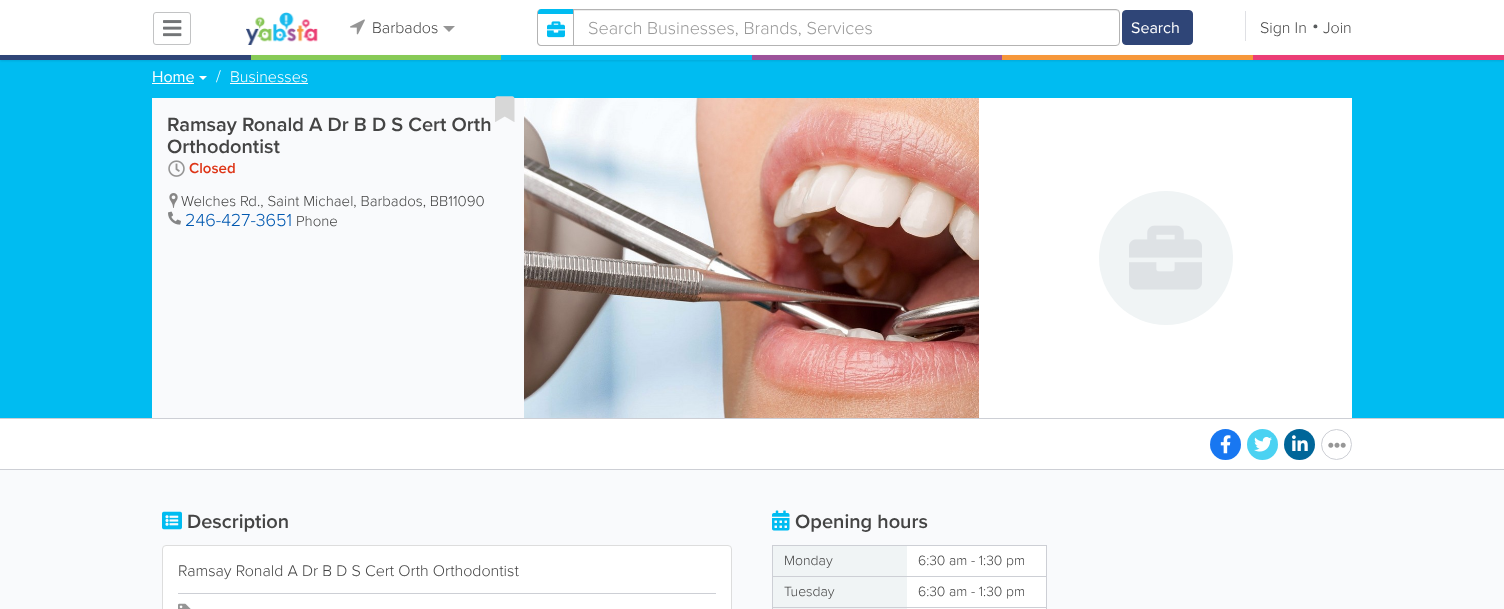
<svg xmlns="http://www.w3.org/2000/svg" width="1504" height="609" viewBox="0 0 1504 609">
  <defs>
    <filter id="blur1" x="-50%" y="-200%" width="200%" height="500%"><feGaussianBlur stdDeviation="1"/></filter>
  </defs>
  <rect width="100%" height="100%" fill="#f9fafc"/>
  <rect x="0" y="0" width="1504" height="55" fill="#ffffff"/>
  <rect x="153.5" y="12.5" width="37" height="32" rx="2.5" fill="none" stroke="#c2c3c4"/>
  <image x="163" y="20" width="19" height="17" href="img1.png"/>
  <image x="246" y="12" width="72" height="33" href="img2.png"/>
  <image x="350" y="19" width="15" height="16" href="img3.png"/>
  <text x="372" y="33" font-family="Proxima Nova" font-size="16" font-weight="300" fill="#444444">Barbados</text>
  <path d="M443 26H455L449 32Z" fill="#959595"/>
  <path d="M541 11H1116C1118 11 1119 12 1119 14V13C1119 11 1118 10 1116 10H541C539 10 538 11 538 13V14C538 12 539 11 541 11Z" fill="#ececec"/>
  <rect x="537.5" y="9.5" width="582" height="36" rx="3.5" fill="none" stroke="#b3b3b3"/>
  <path d="M541 9H574V46H541C539 46 537 44 537 42V13C537 11 539 9 541 9Z" fill="#ffffff"/>
  <path d="M541 9H574V46H541C539 46 537 44 537 42V13C537 11 539 9 541 9ZM541 9H573V45H541C539.5 45 538 43.5 538 42V13C538 11 539.5 9 541 9Z" fill="#b3b3b3" fill-rule="evenodd"/>
  <path d="M541 9H573V14H538V12C538 10.5 539.5 9 541 9Z" fill="#00bcf1"/>
  <image x="547" y="21" width="18" height="17" href="img4.png"/>
  <text x="588" y="34" font-family="Proxima Nova" font-size="18" font-weight="300" fill="#999999">Search Businesses, Brands, Services</text>
  <rect x="1122.5" y="10.5" width="70" height="34" rx="3.5" fill="#2f4577" stroke="#2f4577"/>
  <text x="1131" y="33" font-family="Proxima Nova" font-size="16" fill="#ffffff">Search</text>
  <rect x="1245" y="11" width="1" height="30" fill="#dfe0e4"/>
  <text x="1260" y="33" font-family="Proxima Nova" font-size="16" font-weight="300" fill="#444444">Sign In</text>
  <text x="1312" y="31" font-family="Proxima Nova" font-size="19" font-weight="300" fill="#585b5d">•</text>
  <text x="1323" y="33" font-family="Proxima Nova" font-size="16" font-weight="300" fill="#444444">Join</text>
  <rect x="0" y="60" width="1504" height="358" fill="#00bcf1"/>
  <rect x="0" y="56" width="1504" height="5" fill="#000000" fill-opacity="0.1" filter="url(#blur1)"/>
  <rect x="1253" y="55" width="251" height="5" fill="#eb3e76"/>
  <rect x="0" y="55" width="251" height="5" fill="#2f4577"/>
  <rect x="251" y="55" width="250" height="5" fill="#87ca56"/>
  <rect x="501" y="55" width="251" height="5" fill="#00bcf1"/>
  <rect x="752" y="55" width="250" height="5" fill="#9c529a"/>
  <rect x="1002" y="55" width="251" height="5" fill="#f6973a"/>
  <text x="152" y="82" font-family="Proxima Nova" font-size="16" fill="#ffffff">Home</text>
  <rect x="152" y="83" width="42" height="1" fill="#ffffff"/>
  <path d="M199 76H207L203 80Z" fill="#ffffff"/>
  <text x="216" y="82" font-family="Proxima Nova" font-size="17" font-weight="300" fill="#ffffff">/</text>
  <text x="230" y="82" font-family="Proxima Nova" font-size="16" font-weight="300" fill="#ffffff">Businesses</text>
  <rect x="230" y="83" width="78" height="1" fill="#ffffff"/>
  <rect x="152" y="98" width="372" height="320" fill="#f9fafc"/>
  <image x="495" y="96" width="20" height="26" href="img5.png"/>
  <text x="167" y="131" font-family="Proxima Nova" font-size="20" font-weight="600" fill="#444444">Ramsay Ronald A Dr B D S Cert Orth</text>
  <text x="167" y="153" font-family="Proxima Nova" font-size="20" font-weight="600" fill="#444444">Orthodontist</text>
  <image x="168" y="160" width="17" height="17" href="img6.png"/>
  <text x="189" y="173" font-family="Proxima Nova" font-size="15" font-weight="600" fill="#de3517">Closed</text>
  <image x="169" y="193" width="9" height="15" href="img7.png"/>
  <text x="181" y="206" font-family="Proxima Nova" font-size="15" font-weight="300" fill="#444444">Welches Rd., Saint Michael, Barbados, BB11090</text>
  <image x="168" y="211" width="13" height="14" href="img8.png"/>
  <text x="185" y="226" font-family="Proxima Nova" font-size="18" font-weight="300" fill="#0158b0">246-427-3651</text>
  <text x="296" y="226" font-family="Proxima Nova" font-size="15" font-weight="300" fill="#444444">Phone</text>
  <image x="524" y="98" width="455" height="320" href="img9.png"/>
  <rect x="979" y="98" width="373" height="320" fill="#ffffff"/>
  <circle cx="1166" cy="258" r="67" fill="#f0f4f5"/>
  <image x="1129" y="225" width="73" height="65" href="img10.png"/>
  <rect x="0" y="419" width="1504" height="50" fill="#ffffff"/>
  <rect x="0" y="418" width="1504" height="1" fill="#cdcfd5"/>
  <rect x="0" y="469" width="1504" height="1" fill="#cdcfd5"/>
  <circle cx="1225.5" cy="444.5" r="15.5" fill="#1877f1"/>
  <image x="1220" y="435" width="11" height="19" href="img11.png"/>
  <circle cx="1262.5" cy="444.5" r="15.5" fill="#4bd2f2"/>
  <image x="1254" y="436" width="18" height="16" href="img12.png"/>
  <circle cx="1299.5" cy="444.5" r="15.5" fill="#006699"/>
  <image x="1292" y="435" width="16" height="16" href="img13.png"/>
  <circle cx="1336.5" cy="444.5" r="15" fill="none" stroke="#cdcfd5"/>
  <image x="1328" y="442" width="18" height="6" href="img14.png"/>
  <image x="162" y="511" width="20" height="19" href="img15.png"/>
  <text x="187" y="528" font-family="Proxima Nova" font-size="20" font-weight="600" fill="#444444">Description</text>
  <rect x="162.5" y="545.5" width="569" height="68" rx="3.5" fill="#ffffff" stroke="#dddddd"/>
  <text x="178" y="576" font-family="Proxima Nova" font-size="16" font-weight="300" fill="#444444">Ramsay Ronald A Dr B D S Cert Orth Orthodontist</text>
  <rect x="178" y="593" width="538" height="1" fill="#cdcfd5"/>
  <image x="178" y="603" width="13" height="6" href="img16.png"/>
  <image x="772" y="510" width="18" height="21" href="img17.png"/>
  <text x="795" y="528" font-family="Proxima Nova" font-size="20" font-weight="600" fill="#444444">Opening hours</text>
  <rect x="907" y="546" width="139" height="63" fill="#ffffff"/>
  <rect x="1046" y="545" width="1" height="64" fill="#cdcfd5"/>
  <rect x="772" y="545" width="1" height="64" fill="#cdcfd5"/>
  <rect x="773" y="546" width="134" height="30" fill="#f0f4f5"/>
  <text x="784" y="565" font-family="Proxima Nova" font-size="14" font-weight="300" fill="#444444">Monday</text>
  <rect x="773" y="545" width="274" height="1" fill="#cdcfd5"/>
  <text x="918" y="565" font-family="Proxima Nova" font-size="14" font-weight="300" fill="#444444">6:30 am - 1:30 pm</text>
  <rect x="773" y="577" width="134" height="30" fill="#f0f4f5"/>
  <text x="784" y="596" font-family="Proxima Nova" font-size="14" font-weight="300" fill="#444444">Tuesday</text>
  <rect x="773" y="576" width="274" height="1" fill="#cdcfd5"/>
  <text x="918" y="596" font-family="Proxima Nova" font-size="14" font-weight="300" fill="#444444">6:30 am - 1:30 pm</text>
  <rect x="773" y="607" width="274" height="1" fill="#cdcfd5"/>
  <rect x="773" y="608" width="134" height="1" fill="#f0f4f5"/>
</svg>
